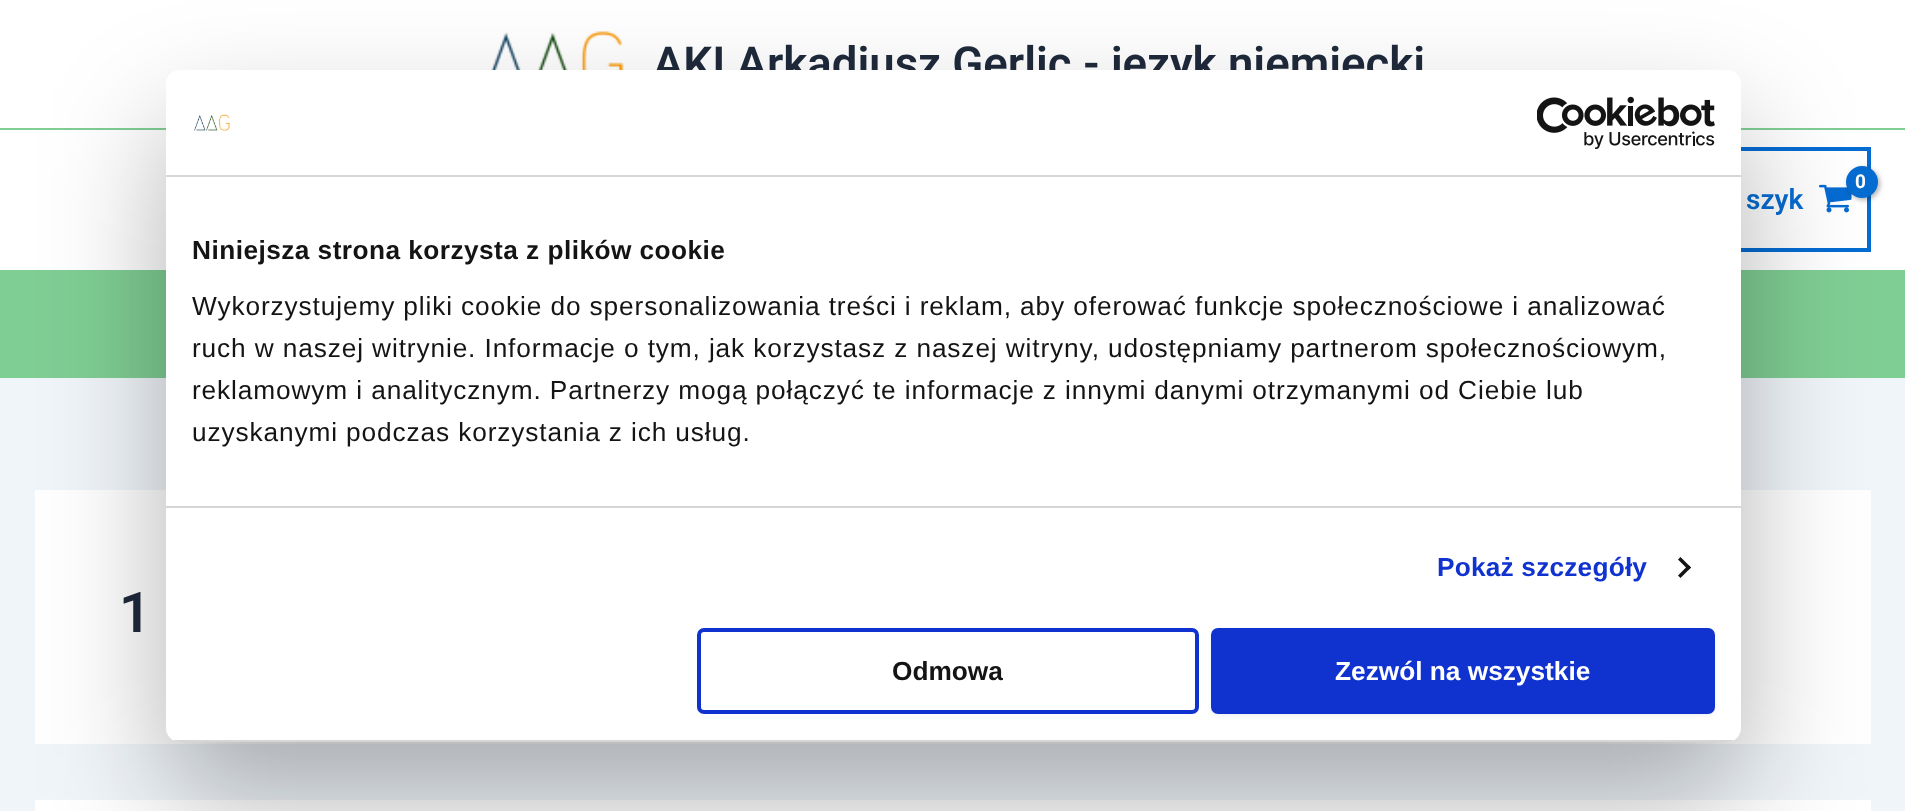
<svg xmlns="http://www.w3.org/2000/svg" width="1905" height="811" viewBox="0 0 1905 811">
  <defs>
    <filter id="blur1" x="-50%" y="-200%" width="200%" height="500%"><feGaussianBlur stdDeviation="2.5"/></filter>
    <filter id="blur2" x="-50%" y="-200%" width="200%" height="500%"><feGaussianBlur stdDeviation="59.5"/></filter>
    <clipPath id="clip1"><rect x="166" y="70" width="1575" height="672" rx="14"/></clipPath>
    <filter id="blur3" x="-50%" y="-200%" width="200%" height="500%"><feGaussianBlur stdDeviation="2"/></filter>
  </defs>
  <rect width="100%" height="100%" fill="#f0f5fa"/>
  <rect x="0" y="0" width="1905" height="128" fill="#ffffff"/>
  <rect x="0" y="128" width="1905" height="2" fill="#7fce94"/>
  <image x="483" y="31" width="141" height="39" href="img1.png"/>
  <text x="653" y="79" font-family="Roboto" font-size="45.5" font-weight="600" fill="#1e293b">AKI Arkadiusz Gerlic - język niemiecki</text>
  <rect x="0" y="130" width="1905" height="140" fill="#ffffff"/>
  <rect x="1698" y="149" width="171" height="101" fill="none" stroke="#046bd2" stroke-width="4"/>
  <image x="1819" y="184" width="33" height="29" href="img2.png"/>
  <rect x="1848" y="168" width="32" height="32" rx="16" fill="#000000" fill-opacity="0.3" filter="url(#blur1)"/>
  <circle cx="1862" cy="182" r="16" fill="#046bd2"/>
  <text x="1855" y="188" font-family="Roboto" font-size="19" font-weight="bold" letter-spacing="-1" fill="#ffffff">0</text>
  <text x="1746" y="209" font-family="Roboto" font-size="28" font-weight="600" fill="#046bd2">szyk</text>
  <rect x="0" y="270" width="1905" height="108" fill="#7fce94"/>
  <rect x="35" y="490" width="1836" height="254" fill="#ffffff"/>
  <text x="119" y="632" font-family="Roboto" font-size="56" font-weight="600" fill="#1e293b">1</text>
  <rect x="35" y="800" width="1836" height="11" fill="#ffffff"/>
  <rect x="166" y="126" width="1575" height="672" rx="14" fill="#000000" fill-opacity="0.3" filter="url(#blur2)"/>
  <rect x="166" y="70" width="1575" height="672" rx="14" fill="#ffffff"/>
  <rect x="166" y="175" width="1575" height="2" fill="#d6d6d6"/>
  <image x="194" y="114" width="36" height="17" href="img3.png"/>
  <image x="1537" y="96" width="178" height="53" href="img4.png"/>
  <rect x="166" y="506" width="1575" height="2" fill="#d6d6d6"/>
  <text x="192" y="259" font-family="Liberation Sans" font-size="26.25" font-weight="bold" letter-spacing="0.45" fill="#141414">Niniejsza strona korzysta z plików cookie</text>
  <text x="192" y="315" font-family="Liberation Sans" font-size="26.25" letter-spacing="0.88" fill="#141414">Wykorzystujemy pliki cookie do spersonalizowania treści i reklam, aby oferować funkcje społecznościowe i analizować</text>
  <text x="192" y="357" font-family="Liberation Sans" font-size="26.25" letter-spacing="0.88" fill="#141414">ruch w naszej witrynie. Informacje o tym, jak korzystasz z naszej witryny, udostępniamy partnerom społecznościowym,</text>
  <text x="192" y="399" font-family="Liberation Sans" font-size="26.25" letter-spacing="0.88" fill="#141414">reklamowym i analitycznym. Partnerzy mogą połączyć te informacje z innymi danymi otrzymanymi od Ciebie lub</text>
  <text x="192" y="441" font-family="Liberation Sans" font-size="26.25" letter-spacing="0.88" fill="#141414">uzyskanymi podczas korzystania z ich usług.</text>
  <text x="1437" y="576" font-family="Liberation Sans" font-size="26.25" font-weight="bold" letter-spacing="0.2" fill="#1032cf">Pokaż szczegóły</text>
  <path d="M1680.5 557L1691 567.5L1688.5 570L1678 559.5Z" fill="#141414"/>
  <path d="M1688.5 565L1691 567.5L1680.5 578L1678 575.5Z" fill="#141414"/>
  <g clip-path="url(#clip1)">
    <rect x="166" y="740" width="1575" height="2" fill="#d6d6d6"/>
  </g>
  <rect x="699" y="630" width="498" height="82" rx="5" fill="none" stroke="#1032cf" stroke-width="4"/>
  <text x="892" y="680" font-family="Liberation Sans" font-size="26.25" font-weight="bold" fill="#141414">Odmowa</text>
  <rect x="1211" y="630" width="504" height="86" rx="7" fill="#000000" fill-opacity="0.05" filter="url(#blur3)"/>
  <rect x="1213" y="630" width="500" height="82" rx="5" fill="#1032cf" stroke="#1032cf" stroke-width="4"/>
  <text x="1335" y="680" font-family="Liberation Sans" font-size="26.25" font-weight="bold" fill="#ffffff">Zezwól na wszystkie</text>
</svg>
